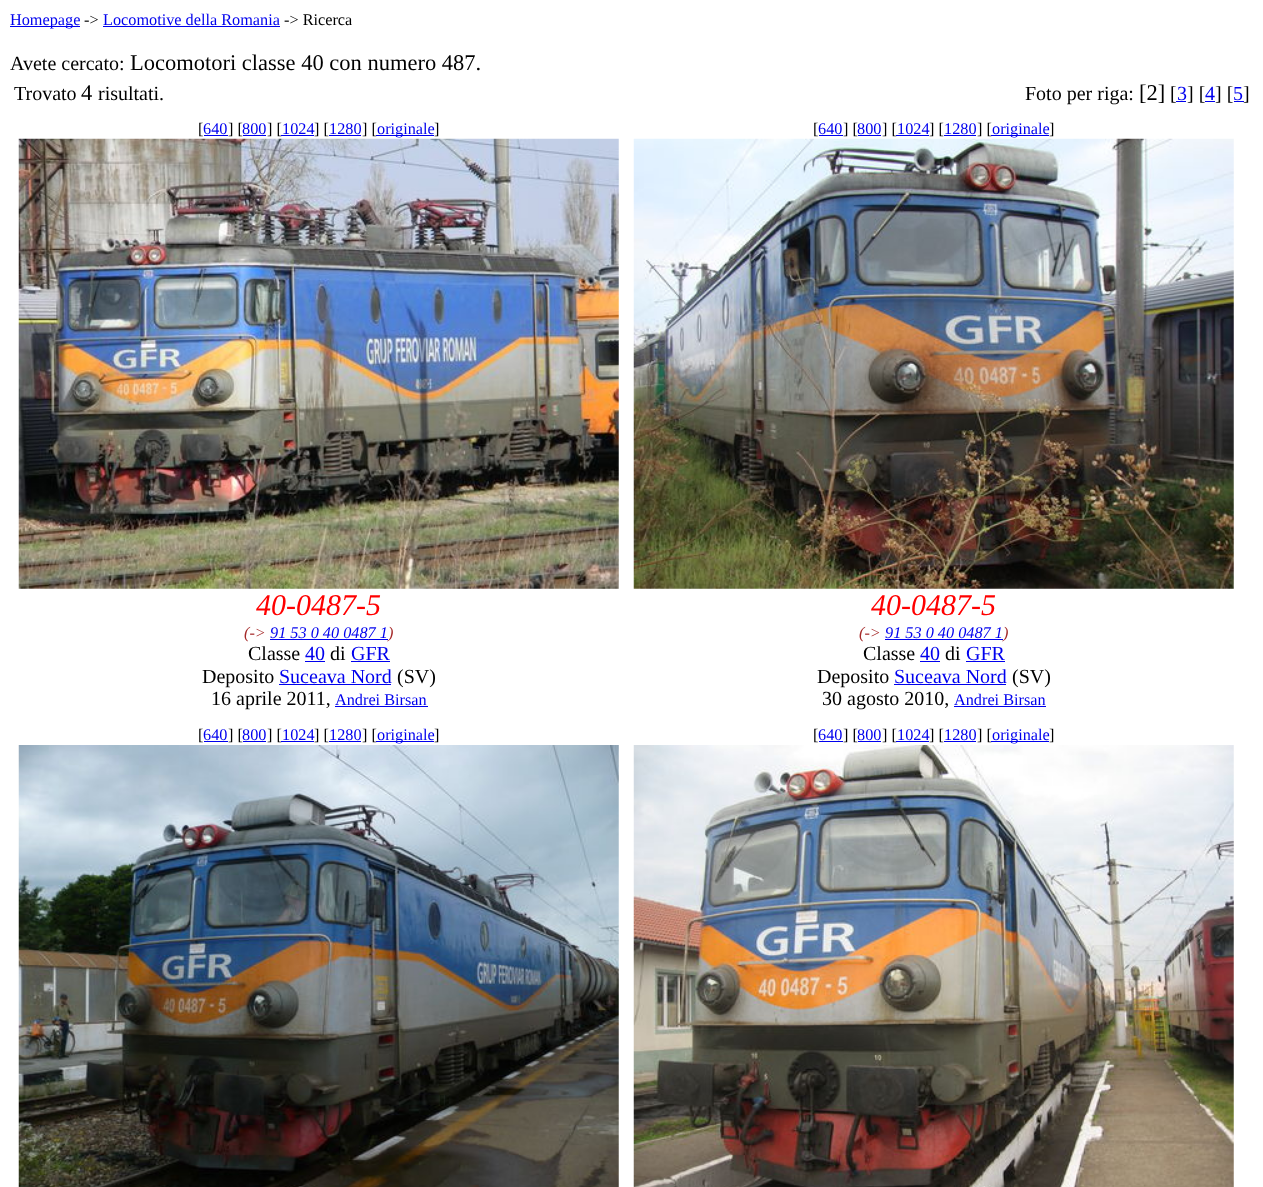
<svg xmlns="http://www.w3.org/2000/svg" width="1263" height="1187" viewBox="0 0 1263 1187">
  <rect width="100%" height="100%" fill="#ffffff"/>
  <rect x="10" y="26" width="70" height="1" fill="#0000ee"/>
  <text x="10" y="25" font-family="Liberation Serif" font-size="16.25" fill="#0000ee">Homepage</text>
  <text x="84" y="25" font-family="Liberation Serif" font-size="16.25" fill="#000000">-&gt;</text>
  <text x="103" y="25" font-family="Liberation Serif" font-size="16.25" fill="#0000ee">Locomotive della Romania</text>
  <rect x="103" y="26" width="177" height="1" fill="#0000ee"/>
  <text x="284" y="25" font-family="Liberation Serif" font-size="16.25" fill="#000000">-&gt; Ricerca</text>
  <text x="10" y="70" font-family="Liberation Serif" font-size="20" fill="#000000">Avete cercato:</text>
  <text x="130" y="70" font-family="Liberation Serif" font-size="22.5" fill="#000000">Locomotori classe 40 con numero 487.</text>
  <text x="14" y="100" font-family="Liberation Serif" font-size="20" fill="#000000">Trovato</text>
  <text x="81" y="100" font-family="Liberation Serif" font-size="22.5" fill="#000000">4</text>
  <text x="98" y="100" font-family="Liberation Serif" font-size="20" fill="#000000">risultati.</text>
  <text x="1025" y="100" font-family="Liberation Serif" font-size="20" fill="#000000">Foto per riga:</text>
  <text x="1139" y="100" font-family="Liberation Serif" font-size="22.5" fill="#000000">[2]</text>
  <text x="1170" y="100" font-family="Liberation Serif" font-size="20" fill="#000000">[</text>
  <text x="1177" y="100" font-family="Liberation Serif" font-size="20" fill="#0000ee">3</text>
  <rect x="1176" y="101" width="10" height="1" fill="#0000ee"/>
  <text x="1187" y="100" font-family="Liberation Serif" font-size="20" fill="#000000">] [</text>
  <text x="1205" y="100" font-family="Liberation Serif" font-size="20" fill="#0000ee">4</text>
  <rect x="1205" y="101" width="10" height="1" fill="#0000ee"/>
  <text x="1215" y="100" font-family="Liberation Serif" font-size="20" fill="#000000">] [</text>
  <text x="1233" y="100" font-family="Liberation Serif" font-size="20" fill="#0000ee">5</text>
  <rect x="1234" y="101" width="10" height="1" fill="#0000ee"/>
  <text x="1243" y="100" font-family="Liberation Serif" font-size="20" fill="#000000">]</text>
  <text x="198" y="134" font-family="Liberation Serif" font-size="16.25" fill="#000000">[</text>
  <text x="203" y="134" font-family="Liberation Serif" font-size="16.25" fill="#0000ee">640</text>
  <text x="228" y="134" font-family="Liberation Serif" font-size="16.25" fill="#000000">] [</text>
  <rect x="204" y="135" width="24" height="1" fill="#0000ee"/>
  <rect x="243" y="135" width="23" height="1" fill="#0000ee"/>
  <text x="242" y="134" font-family="Liberation Serif" font-size="16.25" fill="#0000ee">800</text>
  <text x="267" y="134" font-family="Liberation Serif" font-size="16.25" fill="#000000">] [</text>
  <rect x="281" y="135" width="33" height="1" fill="#0000ee"/>
  <text x="282" y="134" font-family="Liberation Serif" font-size="16.25" fill="#0000ee">1024</text>
  <text x="314" y="134" font-family="Liberation Serif" font-size="16.25" fill="#000000">] [</text>
  <rect x="329" y="135" width="32" height="1" fill="#0000ee"/>
  <text x="329" y="134" font-family="Liberation Serif" font-size="16.25" fill="#0000ee">1280</text>
  <text x="362" y="134" font-family="Liberation Serif" font-size="16.25" fill="#000000">] [</text>
  <rect x="376" y="135" width="58" height="1" fill="#0000ee"/>
  <text x="377" y="134" font-family="Liberation Serif" font-size="16.25" fill="#0000ee">originale</text>
  <text x="434" y="134" font-family="Liberation Serif" font-size="16.25" fill="#000000">]</text>
  <image x="18" y="138" width="601" height="451" href="img1.png"/>
  <text x="256" y="615" font-family="Liberation Serif" font-size="30" font-style="italic" fill="#ff0000">40-0487-5</text>
  <text x="244" y="638" font-family="Liberation Serif" font-size="16.25" font-style="italic" fill="#a52a2a">(-&gt;</text>
  <text x="270" y="638" font-family="Liberation Serif" font-size="16.25" font-style="italic" fill="#0000ee">91 53 0 40 0487 1</text>
  <rect x="270" y="639" width="118" height="1" fill="#0000ee"/>
  <text x="388" y="638" font-family="Liberation Serif" font-size="16.25" font-style="italic" fill="#a52a2a">)</text>
  <text x="248" y="660" font-family="Liberation Serif" font-size="20" fill="#000000">Classe</text>
  <text x="305" y="660" font-family="Liberation Serif" font-size="20" fill="#0000ee">40</text>
  <rect x="305" y="661" width="20" height="1" fill="#0000ee"/>
  <text x="330" y="660" font-family="Liberation Serif" font-size="20" fill="#000000">di</text>
  <text x="351" y="660" font-family="Liberation Serif" font-size="20" fill="#0000ee">GFR</text>
  <rect x="351" y="661" width="39" height="1" fill="#0000ee"/>
  <text x="202" y="683" font-family="Liberation Serif" font-size="20" fill="#000000">Deposito</text>
  <text x="279" y="683" font-family="Liberation Serif" font-size="20" fill="#0000ee">Suceava Nord</text>
  <rect x="279" y="684" width="112" height="1" fill="#0000ee"/>
  <text x="397" y="683" font-family="Liberation Serif" font-size="20" fill="#000000">(SV)</text>
  <text x="211" y="705" font-family="Liberation Serif" font-size="20" fill="#000000">16 aprile 2011,</text>
  <text x="335" y="705" font-family="Liberation Serif" font-size="16.25" fill="#0000ee">Andrei Birsan</text>
  <rect x="335" y="706" width="93" height="1" fill="#0000ee"/>
  <text x="813" y="134" font-family="Liberation Serif" font-size="16.25" fill="#000000">[</text>
  <text x="818" y="134" font-family="Liberation Serif" font-size="16.25" fill="#0000ee">640</text>
  <text x="843" y="134" font-family="Liberation Serif" font-size="16.25" fill="#000000">] [</text>
  <rect x="819" y="135" width="24" height="1" fill="#0000ee"/>
  <rect x="858" y="135" width="23" height="1" fill="#0000ee"/>
  <text x="857" y="134" font-family="Liberation Serif" font-size="16.25" fill="#0000ee">800</text>
  <text x="882" y="134" font-family="Liberation Serif" font-size="16.25" fill="#000000">] [</text>
  <rect x="896" y="135" width="33" height="1" fill="#0000ee"/>
  <text x="897" y="134" font-family="Liberation Serif" font-size="16.25" fill="#0000ee">1024</text>
  <text x="929" y="134" font-family="Liberation Serif" font-size="16.25" fill="#000000">] [</text>
  <rect x="944" y="135" width="32" height="1" fill="#0000ee"/>
  <text x="944" y="134" font-family="Liberation Serif" font-size="16.25" fill="#0000ee">1280</text>
  <text x="977" y="134" font-family="Liberation Serif" font-size="16.25" fill="#000000">] [</text>
  <rect x="991" y="135" width="58" height="1" fill="#0000ee"/>
  <text x="992" y="134" font-family="Liberation Serif" font-size="16.25" fill="#0000ee">originale</text>
  <text x="1049" y="134" font-family="Liberation Serif" font-size="16.25" fill="#000000">]</text>
  <image x="633" y="138" width="601" height="451" href="img2.png"/>
  <text x="871" y="615" font-family="Liberation Serif" font-size="30" font-style="italic" fill="#ff0000">40-0487-5</text>
  <text x="859" y="638" font-family="Liberation Serif" font-size="16.25" font-style="italic" fill="#a52a2a">(-&gt;</text>
  <text x="885" y="638" font-family="Liberation Serif" font-size="16.25" font-style="italic" fill="#0000ee">91 53 0 40 0487 1</text>
  <rect x="885" y="639" width="118" height="1" fill="#0000ee"/>
  <text x="1003" y="638" font-family="Liberation Serif" font-size="16.25" font-style="italic" fill="#a52a2a">)</text>
  <text x="863" y="660" font-family="Liberation Serif" font-size="20" fill="#000000">Classe</text>
  <text x="920" y="660" font-family="Liberation Serif" font-size="20" fill="#0000ee">40</text>
  <rect x="920" y="661" width="20" height="1" fill="#0000ee"/>
  <text x="945" y="660" font-family="Liberation Serif" font-size="20" fill="#000000">di</text>
  <text x="966" y="660" font-family="Liberation Serif" font-size="20" fill="#0000ee">GFR</text>
  <rect x="966" y="661" width="39" height="1" fill="#0000ee"/>
  <text x="817" y="683" font-family="Liberation Serif" font-size="20" fill="#000000">Deposito</text>
  <text x="894" y="683" font-family="Liberation Serif" font-size="20" fill="#0000ee">Suceava Nord</text>
  <rect x="894" y="684" width="112" height="1" fill="#0000ee"/>
  <text x="1012" y="683" font-family="Liberation Serif" font-size="20" fill="#000000">(SV)</text>
  <text x="822" y="705" font-family="Liberation Serif" font-size="20" fill="#000000">30 agosto 2010,</text>
  <text x="954" y="705" font-family="Liberation Serif" font-size="16.25" fill="#0000ee">Andrei Birsan</text>
  <rect x="954" y="706" width="92" height="1" fill="#0000ee"/>
  <text x="198" y="740" font-family="Liberation Serif" font-size="16.25" fill="#000000">[</text>
  <text x="203" y="740" font-family="Liberation Serif" font-size="16.25" fill="#0000ee">640</text>
  <text x="228" y="740" font-family="Liberation Serif" font-size="16.25" fill="#000000">] [</text>
  <rect x="204" y="741" width="24" height="1" fill="#0000ee"/>
  <rect x="243" y="741" width="23" height="1" fill="#0000ee"/>
  <text x="242" y="740" font-family="Liberation Serif" font-size="16.25" fill="#0000ee">800</text>
  <text x="267" y="740" font-family="Liberation Serif" font-size="16.25" fill="#000000">] [</text>
  <rect x="281" y="741" width="33" height="1" fill="#0000ee"/>
  <text x="282" y="740" font-family="Liberation Serif" font-size="16.25" fill="#0000ee">1024</text>
  <text x="314" y="740" font-family="Liberation Serif" font-size="16.25" fill="#000000">] [</text>
  <rect x="329" y="741" width="32" height="1" fill="#0000ee"/>
  <text x="329" y="740" font-family="Liberation Serif" font-size="16.25" fill="#0000ee">1280</text>
  <text x="362" y="740" font-family="Liberation Serif" font-size="16.25" fill="#000000">] [</text>
  <rect x="376" y="741" width="58" height="1" fill="#0000ee"/>
  <text x="377" y="740" font-family="Liberation Serif" font-size="16.25" fill="#0000ee">originale</text>
  <text x="434" y="740" font-family="Liberation Serif" font-size="16.25" fill="#000000">]</text>
  <image x="18" y="745" width="601" height="442" href="img3.png"/>
  <text x="813" y="740" font-family="Liberation Serif" font-size="16.25" fill="#000000">[</text>
  <text x="818" y="740" font-family="Liberation Serif" font-size="16.25" fill="#0000ee">640</text>
  <text x="843" y="740" font-family="Liberation Serif" font-size="16.25" fill="#000000">] [</text>
  <rect x="819" y="741" width="24" height="1" fill="#0000ee"/>
  <rect x="858" y="741" width="23" height="1" fill="#0000ee"/>
  <text x="857" y="740" font-family="Liberation Serif" font-size="16.25" fill="#0000ee">800</text>
  <text x="882" y="740" font-family="Liberation Serif" font-size="16.25" fill="#000000">] [</text>
  <rect x="896" y="741" width="33" height="1" fill="#0000ee"/>
  <text x="897" y="740" font-family="Liberation Serif" font-size="16.25" fill="#0000ee">1024</text>
  <text x="929" y="740" font-family="Liberation Serif" font-size="16.25" fill="#000000">] [</text>
  <rect x="944" y="741" width="32" height="1" fill="#0000ee"/>
  <text x="944" y="740" font-family="Liberation Serif" font-size="16.25" fill="#0000ee">1280</text>
  <text x="977" y="740" font-family="Liberation Serif" font-size="16.25" fill="#000000">] [</text>
  <rect x="991" y="741" width="58" height="1" fill="#0000ee"/>
  <text x="992" y="740" font-family="Liberation Serif" font-size="16.25" fill="#0000ee">originale</text>
  <text x="1049" y="740" font-family="Liberation Serif" font-size="16.25" fill="#000000">]</text>
  <image x="633" y="745" width="601" height="442" href="img4.png"/>
</svg>
